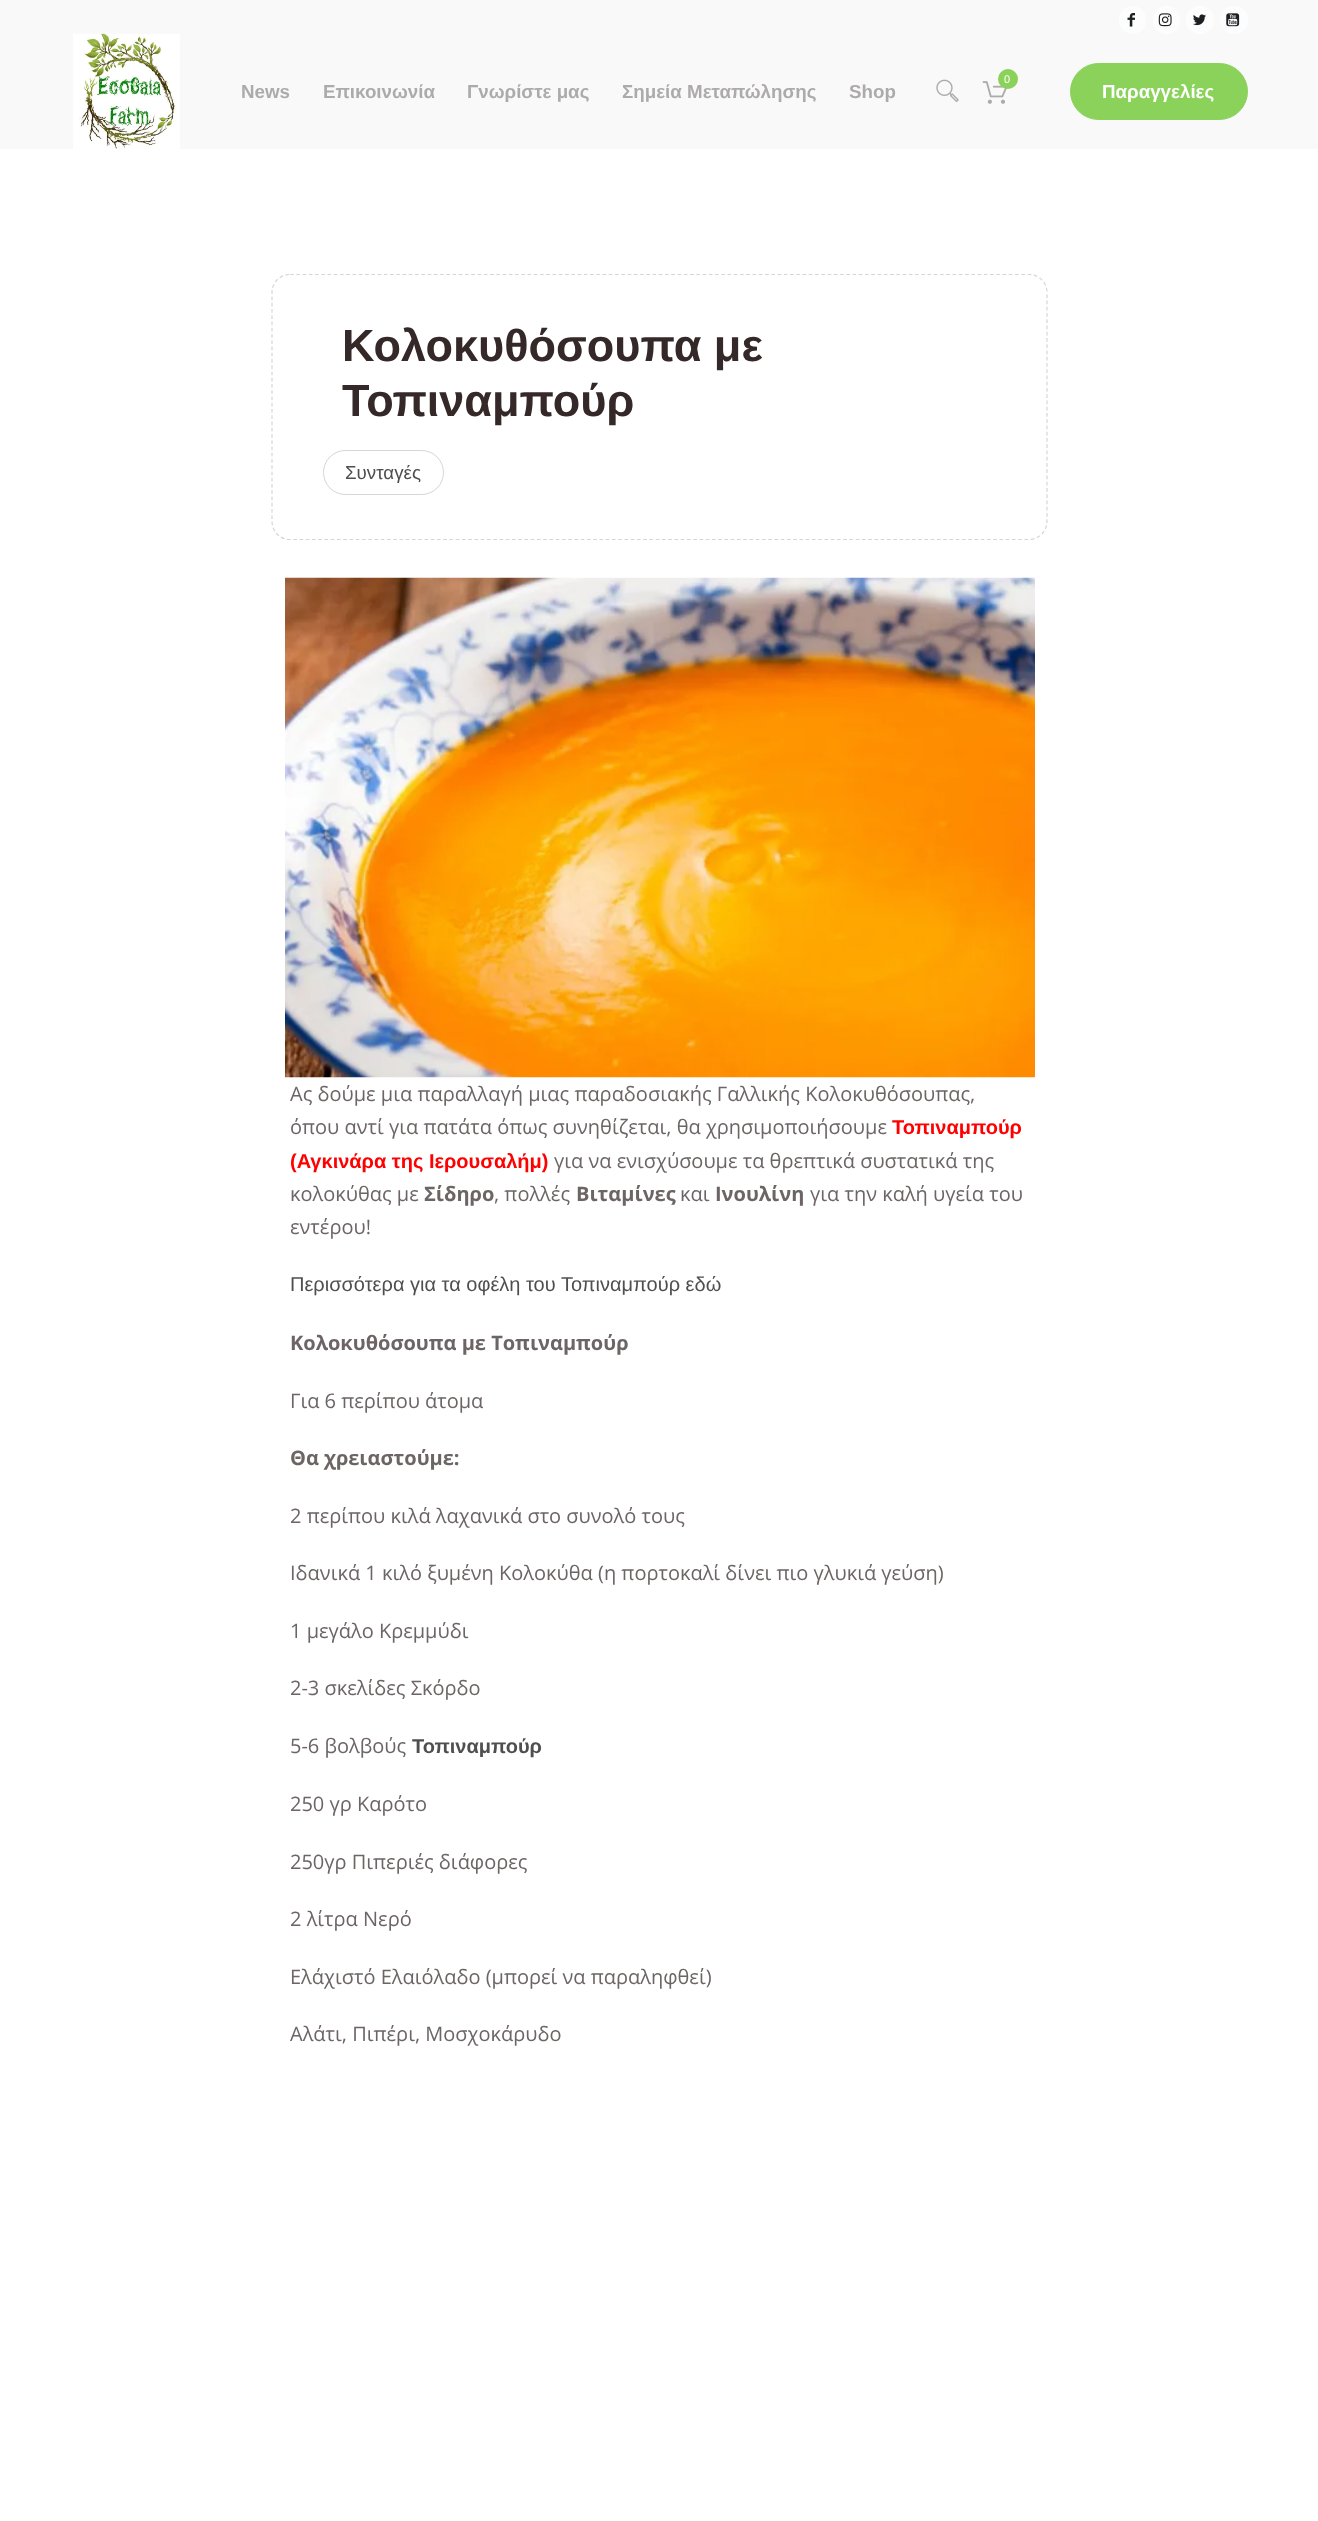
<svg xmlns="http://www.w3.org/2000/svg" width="1318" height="2521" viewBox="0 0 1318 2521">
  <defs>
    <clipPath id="clip1"><rect x="271" y="274" width="777" height="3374"/></clipPath>
  </defs>
  <rect width="100%" height="100%" fill="#ffffff"/>
  <rect x="0" y="0" width="1318" height="149" fill="#f9f9fa"/>
  <rect x="1119" y="6" width="27" height="28" rx="13.5" fill="#fdfdfd"/>
  <image x="1127" y="13" width="8" height="14" href="img1.png"/>
  <rect x="1153" y="6" width="27" height="28" rx="13.5" fill="#fdfdfd"/>
  <image x="1158" y="13" width="14" height="14" href="img2.png"/>
  <circle cx="1200" cy="20" r="14" fill="#fdfdfd"/>
  <image x="1193" y="14" width="13" height="12" href="img3.png"/>
  <circle cx="1234" cy="20" r="14" fill="#fdfdfd"/>
  <image x="1226" y="13" width="14" height="14" href="img4.png"/>
  <image x="73" y="33" width="107" height="116" href="img5.png"/>
  <text x="241" y="98" font-family="Liberation Sans" font-size="18.75" font-weight="bold" fill="#adaaaa">News</text>
  <text x="323" y="98" font-family="Liberation Sans" font-size="18.75" font-weight="bold" fill="#adaaaa">Επικοινωνία</text>
  <text x="467" y="98" font-family="Liberation Sans" font-size="18.75" font-weight="bold" fill="#adaaaa">Γνωρίστε μας</text>
  <text x="622" y="98" font-family="Liberation Sans" font-size="18.75" font-weight="bold" fill="#adaaaa">Σημεία Μεταπώλησης</text>
  <text x="849" y="98" font-family="Liberation Sans" font-size="18.75" font-weight="bold" fill="#adaaaa">Shop</text>
  <image x="936" y="79" width="23" height="23" href="img6.png"/>
  <image x="982" y="81" width="25" height="23" href="img7.png"/>
  <circle cx="1008" cy="79" r="10" fill="#8bd25a"/>
  <text x="1004" y="83" font-family="Liberation Sans" font-size="11" fill="#ffffff">0</text>
  <rect x="1070.5" y="63.5" width="177" height="56" rx="28" fill="#8bd25a" stroke="#8bd25a"/>
  <text x="1102" y="98" font-family="Liberation Sans" font-size="18.75" font-weight="bold" fill="#ffffff">Παραγγελίες</text>
  <g clip-path="url(#clip1)">
    <path d="M290 274.5H1029C1039 274.5 1047 282.5 1047 292.5V521C1047 531.5 1039 539.5 1029 539.5H290C280 539.5 272 531.5 272 521V292.5C272 282.5 280 274.5 290 274.5Z" fill="none" stroke="#d6d6d6" stroke-width="1.2" stroke-dasharray="3.75 2.5"/>
  </g>
  <text x="342" y="361" font-family="Liberation Sans" font-size="45" font-weight="bold" fill="#342828">Κολοκυθόσουπα με</text>
  <text x="342" y="416" font-family="Liberation Sans" font-size="45" font-weight="bold" fill="#342828">Τοπιναμπούρ</text>
  <rect x="323.5" y="450.5" width="120" height="44" rx="22" fill="none" stroke="#d6d6d6"/>
  <text x="345" y="479" font-family="Liberation Sans" font-size="18.75" fill="#4f4f4f">Συνταγές</text>
  <image x="285" y="577" width="750" height="501" href="img8.png"/>
  <text x="290" y="1101" font-family="Open Sans" font-size="20" fill="#6d6565">Ας δούμε μια παραλλαγή μιας παραδοσιακής Γαλλικής Κολοκυθόσουπας,</text>
  <text x="290" y="1134" font-family="Open Sans" font-size="20" fill="#6d6565">όπου αντί για πατάτα όπως συνηθίζεται, θα χρησιμοποιήσουμε</text>
  <text x="892" y="1134" font-family="Liberation Sans" font-size="20" font-weight="bold" fill="#ff0000">Τοπιναμπούρ</text>
  <text x="290" y="1168" font-family="Liberation Sans" font-size="20" font-weight="bold" fill="#ff0000">(Αγκινάρα της Ιερουσαλήμ)</text>
  <text x="554" y="1168" font-family="Open Sans" font-size="20" fill="#6d6565">για να ενισχύσουμε τα θρεπτικά συστατικά της</text>
  <text x="290" y="1201" font-family="Open Sans" font-size="20" fill="#6d6565">κολοκύθας με</text>
  <text x="424" y="1201" font-family="Open Sans" font-size="20" font-weight="bold" fill="#6d6565">Σίδηρο</text>
  <text x="494" y="1201" font-family="Open Sans" font-size="20" fill="#6d6565">, πολλές</text>
  <text x="576" y="1201" font-family="Open Sans" font-size="20" font-weight="bold" fill="#6d6565">Βιταμίνες</text>
  <text x="680" y="1201" font-family="Open Sans" font-size="20" fill="#6d6565">και</text>
  <text x="715" y="1201" font-family="Open Sans" font-size="20" font-weight="bold" fill="#6d6565">Ινουλίνη</text>
  <text x="810" y="1201" font-family="Open Sans" font-size="20" fill="#6d6565">για την καλή υγεία του</text>
  <text x="290" y="1234" font-family="Open Sans" font-size="20" fill="#6d6565">εντέρου!</text>
  <text x="290" y="1291" font-family="Liberation Sans" font-size="20" fill="#4f4f4f">Περισσότερα για τα οφέλη του Τοπιναμπούρ εδώ</text>
  <text x="290" y="1350" font-family="Open Sans" font-size="20" font-weight="bold" fill="#6d6565">Κολοκυθόσουπα με Τοπιναμπούρ</text>
  <text x="290" y="1408" font-family="Open Sans" font-size="20" fill="#6d6565">Για 6 περίπου άτομα</text>
  <text x="290" y="1465" font-family="Open Sans" font-size="20" font-weight="bold" fill="#6d6565">Θα χρειαστούμε:</text>
  <text x="290" y="1523" font-family="Open Sans" font-size="20" fill="#6d6565">2 περίπου κιλά λαχανικά στο συνολό τους</text>
  <text x="290" y="1580" font-family="Open Sans" font-size="20" fill="#6d6565">Ιδανικά 1 κιλό ξυμένη Κολοκύθα (η πορτοκαλί δίνει πιο γλυκιά γεύση)</text>
  <text x="290" y="1638" font-family="Open Sans" font-size="20" fill="#6d6565">1 μεγάλο Κρεμμύδι</text>
  <text x="290" y="1695" font-family="Open Sans" font-size="20" fill="#6d6565">2-3 σκελίδες Σκόρδο</text>
  <text x="290" y="1753" font-family="Open Sans" font-size="20" fill="#6d6565">5-6 βολβούς</text>
  <text x="412" y="1753" font-family="Liberation Sans" font-size="20" font-weight="bold" fill="#4f4f4f">Τοπιναμπούρ</text>
  <text x="290" y="1811" font-family="Open Sans" font-size="20" fill="#6d6565">250 γρ Καρότο</text>
  <text x="290" y="1869" font-family="Open Sans" font-size="20" fill="#6d6565">250γρ Πιπεριές διάφορες</text>
  <text x="290" y="1926" font-family="Open Sans" font-size="20" fill="#6d6565">2 λίτρα Νερό</text>
  <text x="290" y="1984" font-family="Open Sans" font-size="20" fill="#6d6565">Ελάχιστό Ελαιόλαδο (μπορεί να παραληφθεί)</text>
  <text x="290" y="2041" font-family="Open Sans" font-size="20" fill="#6d6565">Αλάτι, Πιπέρι, Μοσχοκάρυδο</text>
</svg>
